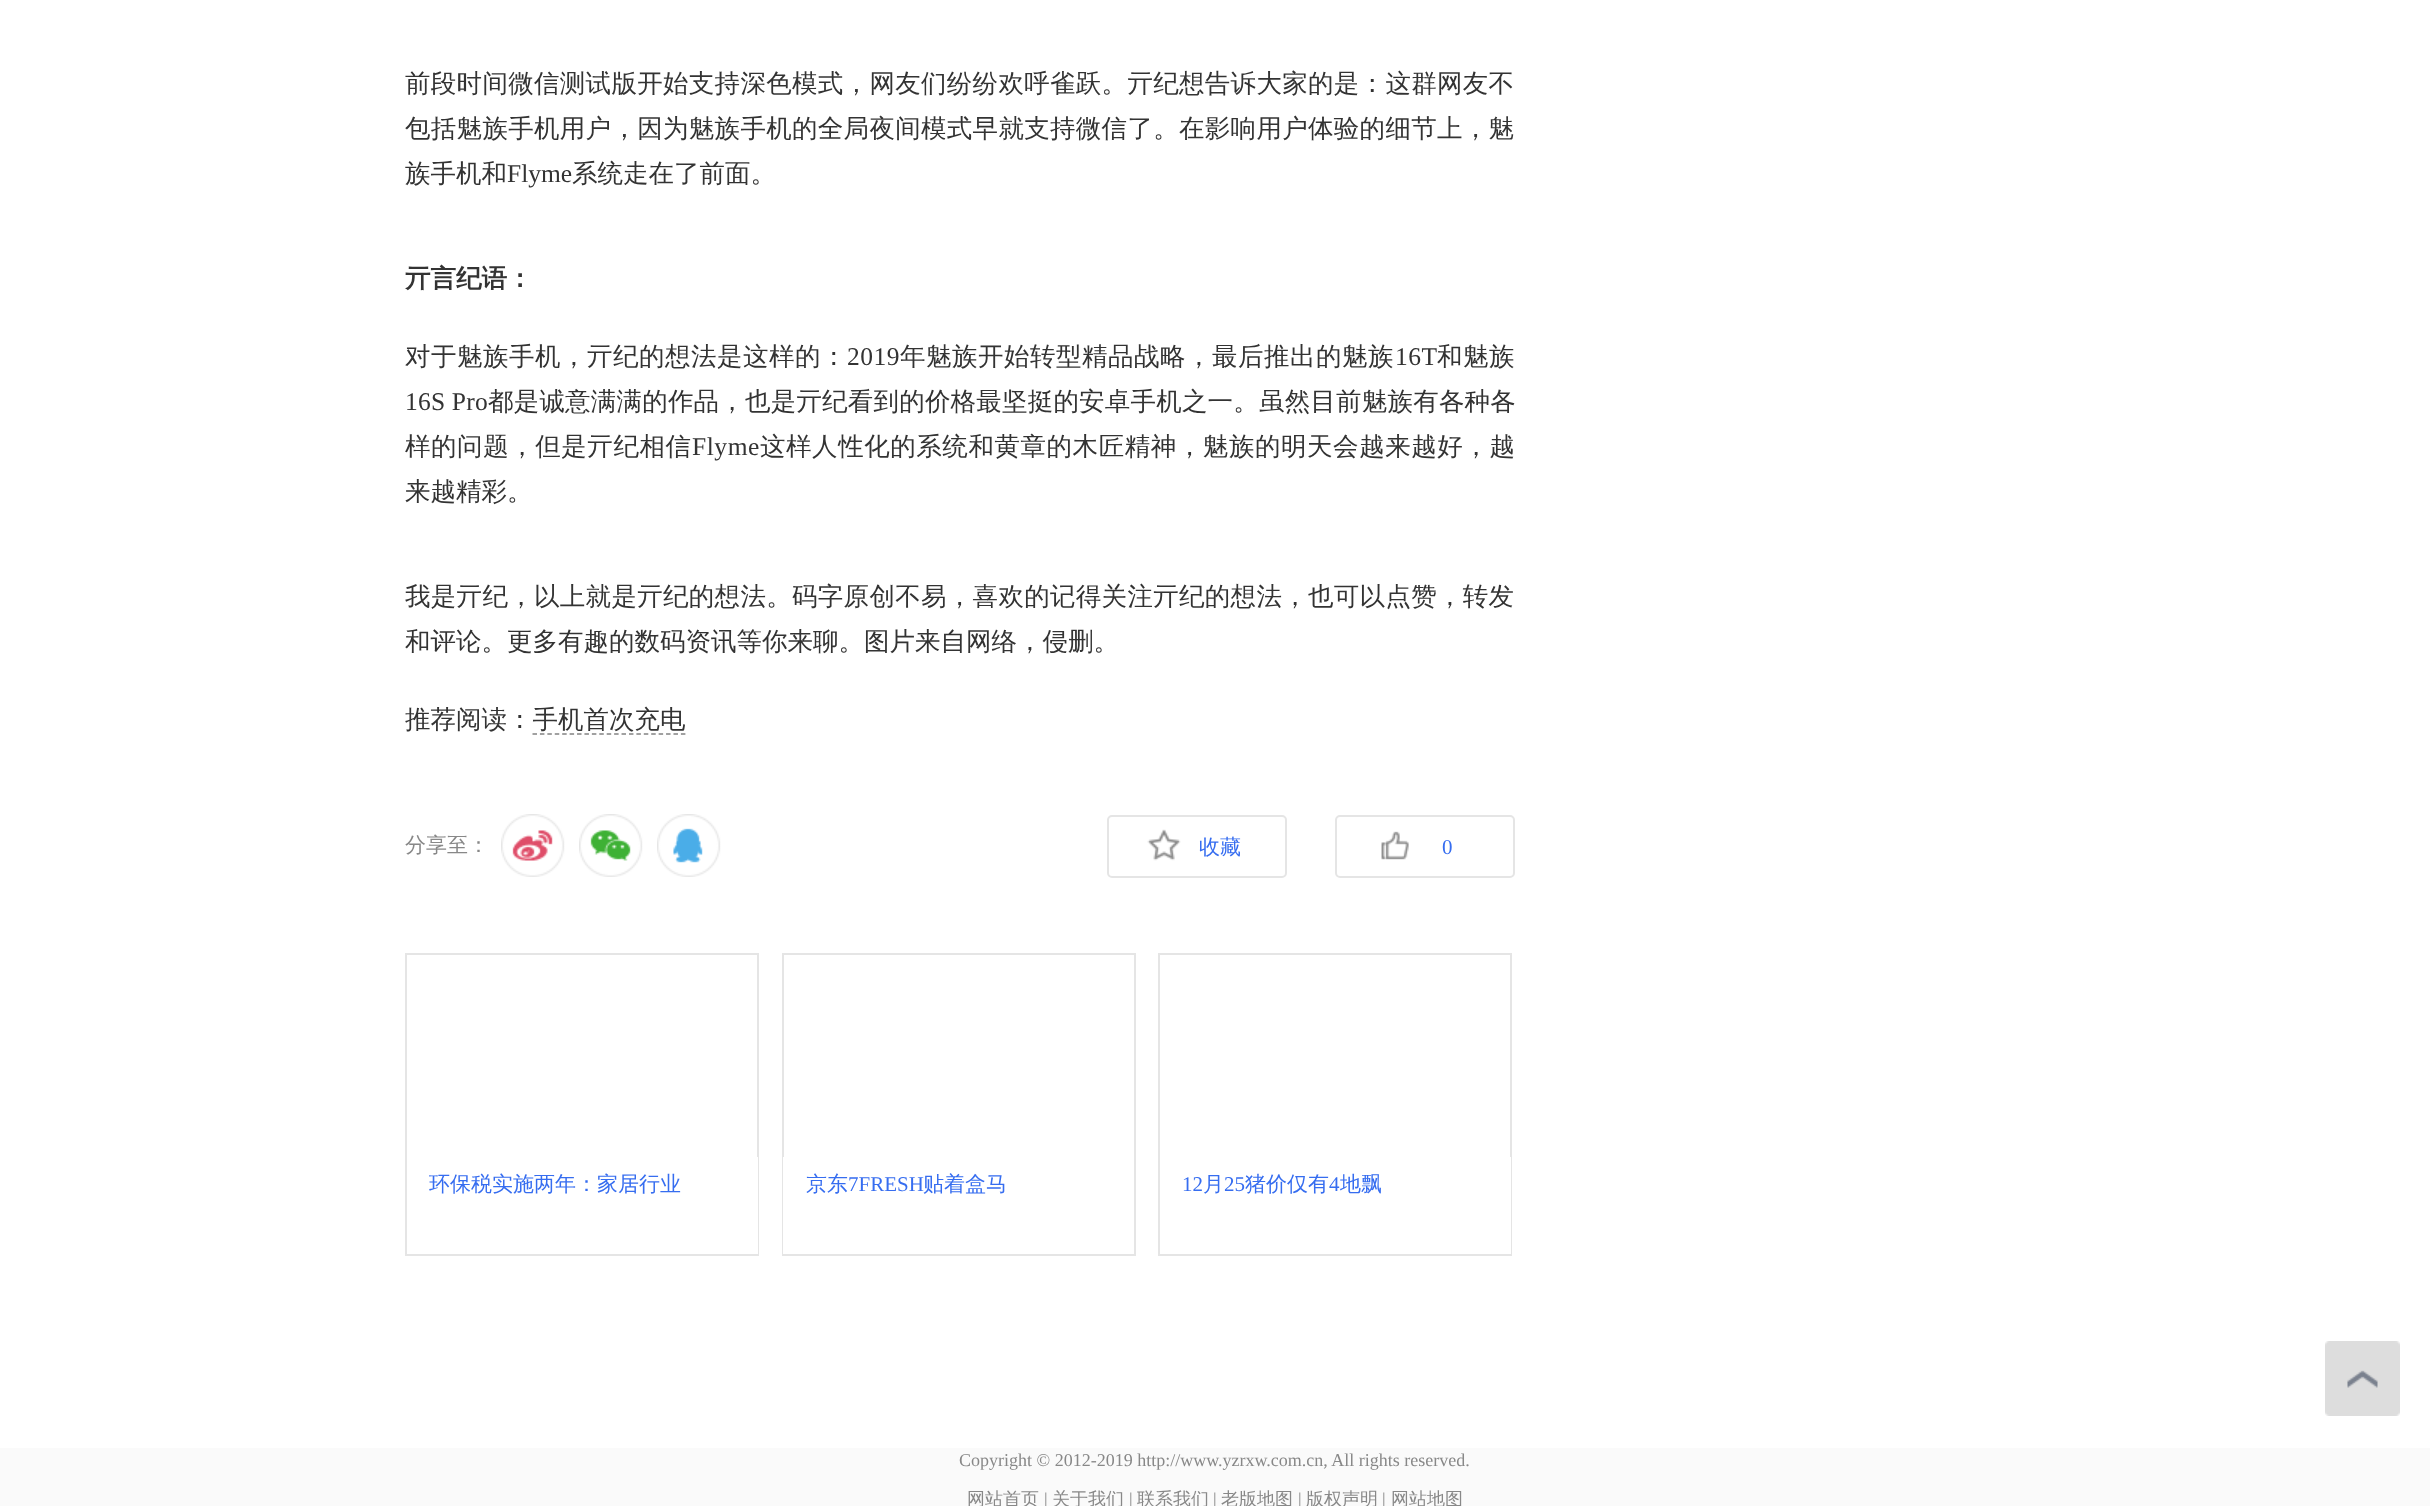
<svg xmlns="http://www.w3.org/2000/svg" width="2430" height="1506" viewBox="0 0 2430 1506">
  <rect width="100%" height="100%" fill="#ffffff"/>
  <text x="405" y="92" font-family="WenQuanYi Zen Hei" font-size="25.5" font-weight="500" letter-spacing="0.3" fill="#333333">前段时间微信测试版开始支持深色模式，网友们纷纷欢呼雀跃。亓纪想告诉大家的是：这群网友不</text>
  <text x="405" y="137" font-family="WenQuanYi Zen Hei" font-size="25.5" font-weight="500" letter-spacing="0.3" fill="#333333">包括魅族手机用户，因为魅族手机的全局夜间模式早就支持微信了。在影响用户体验的细节上，魅</text>
  <text x="405" y="182" font-family="WenQuanYi Zen Hei" font-size="25.5" font-weight="500" fill="#333333">族手机和</text>
  <text x="507" y="182" font-family="Liberation Serif" font-size="25.5" fill="#333333">Flyme</text>
  <text x="572" y="182" font-family="WenQuanYi Zen Hei" font-size="25.5" font-weight="500" fill="#333333">系统走在了前面。</text>
  <text x="405" y="287" font-family="WenQuanYi Zen Hei" font-size="25.5" font-weight="bold" fill="#333333">亓言纪语：</text>
  <text x="405" y="365" font-family="WenQuanYi Zen Hei" font-size="25.5" font-weight="500" letter-spacing="0.5" fill="#333333">对于魅族手机，亓纪的想法是这样的：</text>
  <text x="847" y="365" font-family="Liberation Serif" font-size="25.5" letter-spacing="0.5" fill="#333333">2019</text>
  <text x="900" y="365" font-family="WenQuanYi Zen Hei" font-size="25.5" font-weight="500" letter-spacing="0.5" fill="#333333">年魅族开始转型精品战略，最后推出的魅族</text>
  <text x="1395" y="365" font-family="Liberation Serif" font-size="25.5" letter-spacing="0.5" fill="#333333">16T</text>
  <text x="1437" y="365" font-family="WenQuanYi Zen Hei" font-size="25.5" font-weight="500" letter-spacing="0.5" fill="#333333">和魅族</text>
  <text x="405" y="410" font-family="Liberation Serif" font-size="25.5" letter-spacing="0.2" fill="#333333">16S Pro</text>
  <text x="488" y="410" font-family="WenQuanYi Zen Hei" font-size="25.5" font-weight="500" letter-spacing="0.2" fill="#333333">都是诚意满满的作品，也是亓纪看到的价格最坚挺的安卓手机之一。虽然目前魅族有各种各</text>
  <text x="405" y="455" font-family="WenQuanYi Zen Hei" font-size="25.5" font-weight="500" letter-spacing="0.55" fill="#333333">样的问题，但是亓纪相信</text>
  <text x="692" y="455" font-family="Liberation Serif" font-size="25.5" letter-spacing="0.55" fill="#333333">Flyme</text>
  <text x="760" y="455" font-family="WenQuanYi Zen Hei" font-size="25.5" font-weight="500" letter-spacing="0.55" fill="#333333">这样人性化的系统和黄章的木匠精神，魅族的明天会越来越好，越</text>
  <text x="405" y="500" font-family="WenQuanYi Zen Hei" font-size="25.5" font-weight="500" fill="#333333">来越精彩。</text>
  <text x="405" y="605" font-family="WenQuanYi Zen Hei" font-size="25.5" font-weight="500" letter-spacing="0.3" fill="#333333">我是亓纪，以上就是亓纪的想法。码字原创不易，喜欢的记得关注亓纪的想法，也可以点赞，转发</text>
  <text x="405" y="650" font-family="WenQuanYi Zen Hei" font-size="25.5" font-weight="500" fill="#333333">和评论。更多有趣的数码资讯等你来聊。图片来自网络，侵删。</text>
  <text x="405" y="728" font-family="WenQuanYi Zen Hei" font-size="25.5" font-weight="500" fill="#333333">推荐阅读：手机首次充电</text>
  <path d="M532.5 734H685.5" fill="none" stroke="#828282" stroke-width="1.5" stroke-dasharray="4.5 2.92"/>
  <text x="405" y="852" font-family="WenQuanYi Zen Hei" font-size="21" font-weight="500" fill="#888888">分享至：</text>
  <image x="501" y="814" width="64" height="63" href="img1.png"/>
  <image x="579" y="814" width="64" height="63" href="img2.png"/>
  <image x="657" y="814" width="64" height="63" href="img3.png"/>
  <image x="1147" y="829" width="34" height="32" href="img4.png"/>
  <rect x="1108" y="816" width="178" height="61" rx="4" fill="none" stroke="#e5e5e5" stroke-width="2"/>
  <text x="1199" y="854" font-family="WenQuanYi Zen Hei" font-size="21" font-weight="500" fill="#366df0">收藏</text>
  <image x="1381" y="831" width="28" height="29" href="img5.png"/>
  <rect x="1336" y="816" width="178" height="61" rx="4" fill="none" stroke="#e5e5e5" stroke-width="2"/>
  <text x="1442" y="854" font-family="Liberation Serif" font-size="21" fill="#366df0">0</text>
  <rect x="406" y="954" width="352" height="301" fill="none" stroke="#e5e5e5" stroke-width="2"/>
  <rect x="757" y="1157" width="1" height="97" fill="#ffffff"/>
  <text x="429" y="1191" font-family="WenQuanYi Zen Hei" font-size="21" font-weight="500" fill="#366df0">环保税实施两年：家居行业</text>
  <rect x="783" y="954" width="352" height="301" fill="none" stroke="#e5e5e5" stroke-width="2"/>
  <rect x="783" y="1157" width="1" height="97" fill="#ffffff"/>
  <text x="806" y="1191" font-family="WenQuanYi Zen Hei" font-size="21" font-weight="500" fill="#366df0">京东</text>
  <text x="848" y="1191" font-family="Liberation Serif" font-size="21" fill="#366df0">7FRESH</text>
  <text x="923" y="1191" font-family="WenQuanYi Zen Hei" font-size="21" font-weight="500" fill="#366df0">贴着盒马</text>
  <rect x="1159" y="954" width="352" height="301" fill="none" stroke="#e5e5e5" stroke-width="2"/>
  <rect x="1510" y="1157" width="1" height="97" fill="#ffffff"/>
  <text x="1182" y="1191" font-family="Liberation Serif" font-size="21" fill="#366df0">12</text>
  <text x="1203" y="1191" font-family="WenQuanYi Zen Hei" font-size="21" font-weight="500" fill="#366df0">月</text>
  <text x="1224" y="1191" font-family="Liberation Serif" font-size="21" fill="#366df0">25</text>
  <text x="1245" y="1191" font-family="WenQuanYi Zen Hei" font-size="21" font-weight="500" fill="#366df0">猪价仅有</text>
  <text x="1329" y="1191" font-family="Liberation Serif" font-size="21" fill="#366df0">4</text>
  <text x="1340" y="1191" font-family="WenQuanYi Zen Hei" font-size="21" font-weight="500" fill="#366df0">地飘</text>
  <image x="2325" y="1341" width="75" height="75" href="img6.png"/>
  <rect x="0" y="1448" width="2430" height="58" fill="#fafafa"/>
  <text x="959" y="1466" font-family="Liberation Serif" font-size="18" fill="#888888">Copyright © 2012-2019 http://www.yzrxw.com.cn, All rights reserved.</text>
  <text x="967" y="1505" font-family="WenQuanYi Zen Hei" font-size="18" font-weight="500" fill="#888888">网站首页</text>
  <text x="1044" y="1505" font-family="Liberation Serif" font-size="18" fill="#888888">|</text>
  <text x="1052" y="1505" font-family="WenQuanYi Zen Hei" font-size="18" font-weight="500" fill="#888888">关于我们</text>
  <text x="1129" y="1505" font-family="Liberation Serif" font-size="18" fill="#888888">|</text>
  <text x="1137" y="1505" font-family="WenQuanYi Zen Hei" font-size="18" font-weight="500" fill="#888888">联系我们</text>
  <text x="1213" y="1505" font-family="Liberation Serif" font-size="18" fill="#888888">|</text>
  <text x="1221" y="1505" font-family="WenQuanYi Zen Hei" font-size="18" font-weight="500" fill="#888888">老版地图</text>
  <text x="1298" y="1505" font-family="Liberation Serif" font-size="18" fill="#888888">|</text>
  <text x="1306" y="1505" font-family="WenQuanYi Zen Hei" font-size="18" font-weight="500" fill="#888888">版权声明</text>
  <text x="1382" y="1505" font-family="Liberation Serif" font-size="18" fill="#888888">|</text>
  <text x="1391" y="1505" font-family="WenQuanYi Zen Hei" font-size="18" font-weight="500" fill="#888888">网站地图</text>
</svg>
